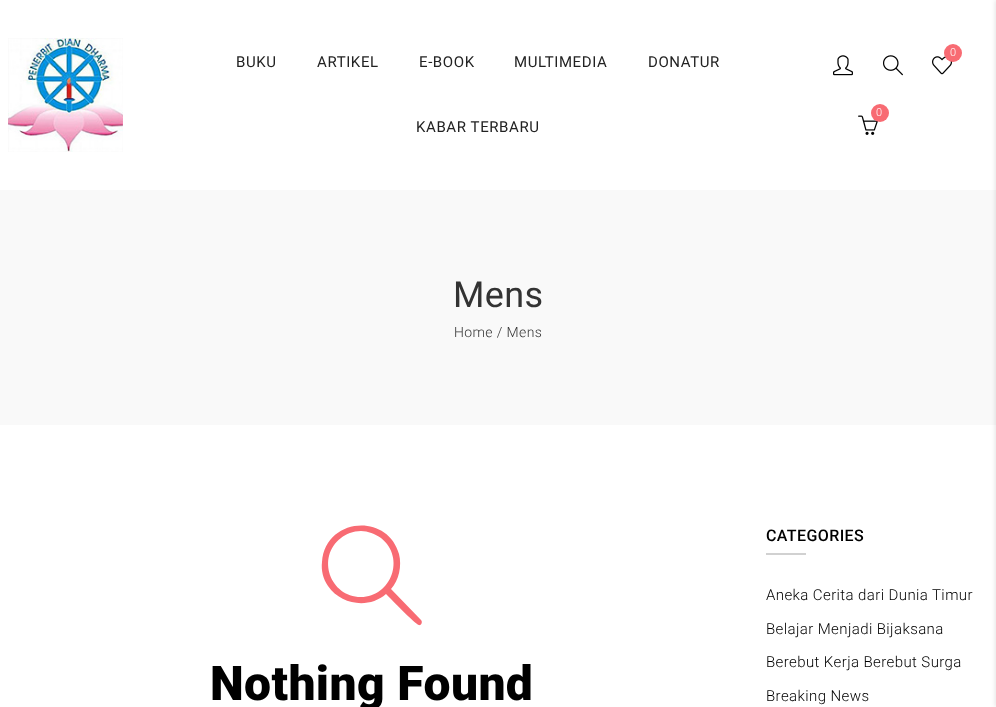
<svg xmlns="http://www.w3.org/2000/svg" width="996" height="707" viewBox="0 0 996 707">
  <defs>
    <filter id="blur1" x="-50%" y="-200%" width="200%" height="500%"><feGaussianBlur stdDeviation="2"/></filter>
  </defs>
  <rect width="100%" height="100%" fill="#ffffff"/>
  <image x="8" y="38" width="115" height="114" href="img1.png"/>
  <text x="236" y="67" font-family="Roboto" font-size="15" letter-spacing="0.6" fill="#222222">BUKU</text>
  <text x="317" y="67" font-family="Roboto" font-size="15" letter-spacing="0.6" fill="#222222">ARTIKEL</text>
  <text x="419" y="67" font-family="Roboto" font-size="15" letter-spacing="0.6" fill="#222222">E-BOOK</text>
  <text x="514" y="67" font-family="Roboto" font-size="15" letter-spacing="0.6" fill="#222222">MULTIMEDIA</text>
  <text x="648" y="67" font-family="Roboto" font-size="15" letter-spacing="0.6" fill="#222222">DONATUR</text>
  <text x="416" y="132" font-family="Roboto" font-size="15" letter-spacing="0.6" fill="#222222">KABAR TERBARU</text>
  <image x="932" y="56" width="20" height="19" href="img2.png"/>
  <circle cx="953" cy="53" r="9" fill="#f86b73"/>
  <text x="950" y="56" font-family="Roboto" font-size="11" font-weight="300" letter-spacing="0.4" fill="#ffffff">0</text>
  <image x="833" y="55" width="20" height="21" href="img3.png"/>
  <image x="883" y="55" width="20" height="21" href="img4.png"/>
  <image x="858" y="115" width="20" height="20" href="img5.png"/>
  <circle cx="880" cy="113" r="9" fill="#f86b73"/>
  <text x="876" y="116" font-family="Roboto" font-size="11" font-weight="300" letter-spacing="0.4" fill="#ffffff">0</text>
  <rect x="0" y="190" width="996" height="235" fill="#f9f9f9"/>
  <rect x="995" y="0" width="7" height="707" fill="#000000" fill-opacity="0.1" filter="url(#blur1)"/>
  <text x="453" y="307" font-family="Roboto" font-size="36" letter-spacing="0.4" fill="#333333">Mens</text>
  <text x="454" y="337" font-family="Roboto" font-size="14" font-weight="300" letter-spacing="0.4" fill="#333333">Home / Mens</text>
  <path d="M421 620L391 589C399 580 402 566 399 554C387 512 325 518 322 562C321 570 323 579 328 586C341 605 369 609 386 594C390 598 416 625 419 625C421 626 423 622 421 620ZM361 597C330 597 316 557 341 538C346 534 353 531 361 531C368 531 375 534 381 538C406 558 391 597 361 597Z" fill="#f86b73"/>
  <text x="210" y="700" font-family="Roboto" font-size="48" font-weight="900" letter-spacing="0.4" fill="#000000">Nothing Found</text>
  <text x="766" y="541" font-family="Roboto" font-size="16" font-weight="500" letter-spacing="0.4" fill="#000000">CATEGORIES</text>
  <rect x="766" y="553" width="40" height="2" fill="#d1d1d1"/>
  <text x="766" y="600" font-family="Roboto" font-size="15" font-weight="300" letter-spacing="0.4" fill="#000000">Aneka Cerita dari Dunia Timur</text>
  <text x="766" y="634" font-family="Roboto" font-size="15" font-weight="300" letter-spacing="0.4" fill="#000000">Belajar Menjadi Bijaksana</text>
  <text x="766" y="667" font-family="Roboto" font-size="15" font-weight="300" letter-spacing="0.4" fill="#000000">Berebut Kerja Berebut Surga</text>
  <text x="766" y="701" font-family="Roboto" font-size="15" font-weight="300" letter-spacing="0.4" fill="#000000">Breaking News</text>
</svg>
